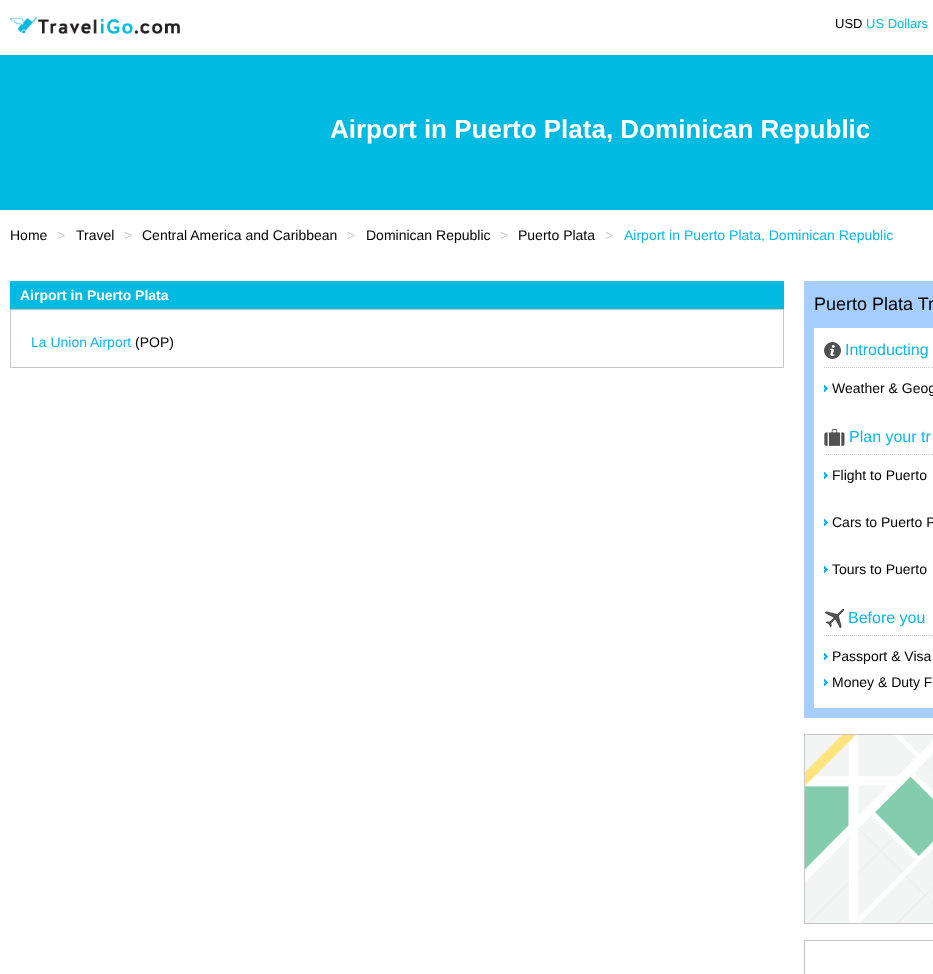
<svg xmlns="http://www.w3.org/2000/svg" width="933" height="974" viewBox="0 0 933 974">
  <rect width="100%" height="100%" fill="#ffffff"/>
  <image x="10" y="17" width="170" height="17" href="img1.png"/>
  <text x="835" y="28" font-family="Liberation Sans" font-size="13" fill="#000000">USD</text>
  <text x="866" y="28" font-family="Liberation Sans" font-size="13" fill="#00bae2">US Dollars</text>
  <rect x="0" y="55" width="933" height="155" fill="#00bae2"/>
  <text x="330" y="138" font-family="Liberation Sans" font-size="26" font-weight="bold" fill="#ffffff">Airport in Puerto Plata, Dominican Republic</text>
  <text x="10" y="240" font-family="Liberation Sans" font-size="14" fill="#000000">Home</text>
  <text x="57" y="240" font-family="Liberation Sans" font-size="14" fill="#cccccc">&gt;</text>
  <text x="76" y="240" font-family="Liberation Sans" font-size="14" fill="#000000">Travel</text>
  <text x="124" y="240" font-family="Liberation Sans" font-size="14" fill="#cccccc">&gt;</text>
  <text x="142" y="240" font-family="Liberation Sans" font-size="14" fill="#000000">Central America and Caribbean</text>
  <text x="347" y="240" font-family="Liberation Sans" font-size="14" fill="#cccccc">&gt;</text>
  <text x="366" y="240" font-family="Liberation Sans" font-size="14" fill="#000000">Dominican Republic</text>
  <text x="500" y="240" font-family="Liberation Sans" font-size="14" fill="#cccccc">&gt;</text>
  <text x="518" y="240" font-family="Liberation Sans" font-size="14" fill="#000000">Puerto Plata</text>
  <text x="605" y="240" font-family="Liberation Sans" font-size="14" fill="#cccccc">&gt;</text>
  <text x="624" y="240" font-family="Liberation Sans" font-size="14" fill="#09b7e9">Airport in Puerto Plata, Dominican Republic</text>
  <rect x="10" y="281" width="774" height="28" fill="#00bae2"/>
  <text x="20" y="300" font-family="Liberation Sans" font-size="14" font-weight="bold" fill="#ffffff">Airport in Puerto Plata</text>
  <rect x="10.5" y="309.5" width="773" height="58" fill="none" stroke="#c6c6c6"/>
  <text x="31" y="347" font-family="Liberation Sans" font-size="14" fill="#09b7e9">La Union</text>
  <text x="90" y="347" font-family="Liberation Sans" font-size="14" fill="#09b7e9">Airport</text>
  <text x="135" y="347" font-family="Liberation Sans" font-size="14" fill="#000000">(POP)</text>
  <rect x="804" y="281" width="129" height="437" fill="#a6cfff"/>
  <text x="814" y="310" font-family="Liberation Sans" font-size="18" fill="#000000">Puerto Plata Tr</text>
  <rect x="814" y="328" width="119" height="380" fill="#ffffff"/>
  <path d="M824 367.5H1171" fill="none" stroke="#cccccc" stroke-dasharray="1 1"/>
  <image x="824" y="342" width="17" height="17" href="img2.png"/>
  <text x="845" y="355" font-family="Liberation Sans" font-size="16" fill="#09b7e9">Introducting</text>
  <image x="824" y="385" width="4" height="7" href="img3.png"/>
  <text x="832" y="393" font-family="Liberation Sans" font-size="14" fill="#000000">Weather &amp; Geog</text>
  <path d="M824 454.5H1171" fill="none" stroke="#cccccc" stroke-dasharray="1 1"/>
  <image x="824" y="429" width="21" height="17" href="img4.png"/>
  <text x="849" y="442" font-family="Liberation Sans" font-size="16" fill="#09b7e9">Plan your tr</text>
  <image x="824" y="472" width="4" height="7" href="img3.png"/>
  <text x="832" y="480" font-family="Liberation Sans" font-size="14" fill="#000000">Flight to Puerto</text>
  <image x="824" y="519" width="4" height="7" href="img3.png"/>
  <text x="832" y="527" font-family="Liberation Sans" font-size="14" fill="#000000">Cars to Puerto P</text>
  <image x="824" y="566" width="4" height="7" href="img3.png"/>
  <text x="832" y="574" font-family="Liberation Sans" font-size="14" fill="#000000">Tours to Puerto</text>
  <path d="M824 635.5H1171" fill="none" stroke="#cccccc" stroke-dasharray="1 1"/>
  <image x="824" y="609" width="20" height="20" href="img5.png"/>
  <text x="848" y="623" font-family="Liberation Sans" font-size="16" fill="#09b7e9">Before you</text>
  <image x="824" y="653" width="4" height="7" href="img3.png"/>
  <text x="832" y="661" font-family="Liberation Sans" font-size="14" fill="#000000">Passport &amp; Visa</text>
  <image x="824" y="679" width="4" height="7" href="img3.png"/>
  <text x="832" y="687" font-family="Liberation Sans" font-size="14" fill="#000000">Money &amp; Duty F</text>
  <rect x="804.5" y="734.5" width="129" height="189" fill="none" stroke="#c6c6c6"/>
  <image x="805" y="735" width="128" height="188" href="img6.png"/>
  <rect x="804.5" y="940.5" width="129" height="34" fill="none" stroke="#c6c6c6"/>
</svg>
